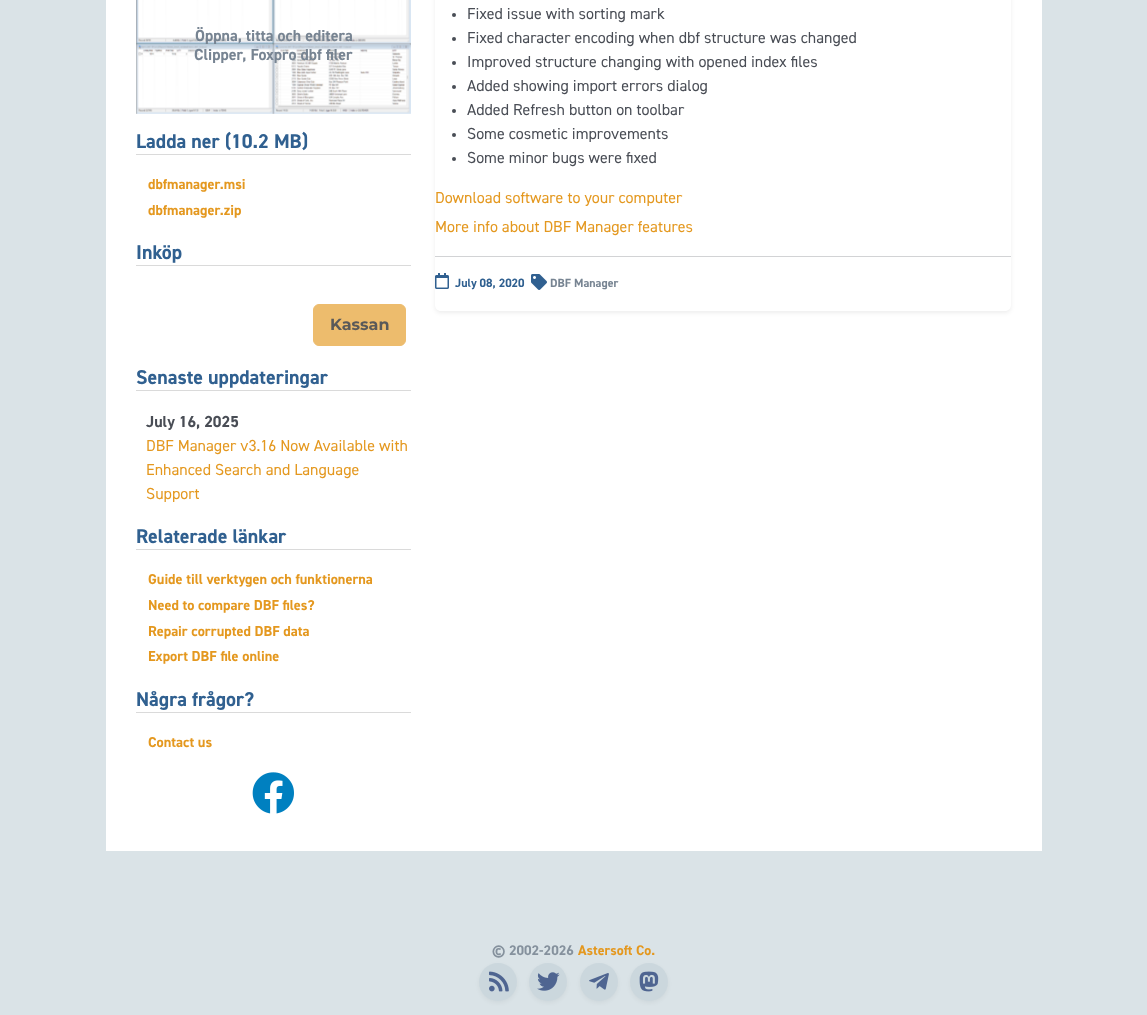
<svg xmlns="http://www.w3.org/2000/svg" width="1147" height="1015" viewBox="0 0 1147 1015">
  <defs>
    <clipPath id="clip1"><path d="M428 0H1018V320H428ZM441-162H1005C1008.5-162 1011-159.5 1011-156V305C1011 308.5 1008.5 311 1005 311H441C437.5 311 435 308.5 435 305V-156C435-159.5 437.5-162 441-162Z" clip-rule="evenodd"/></clipPath>
    <filter id="blur1" x="-50%" y="-200%" width="200%" height="500%"><feGaussianBlur stdDeviation="2"/></filter>
  </defs>
  <rect width="100%" height="100%" fill="#dae3e7"/>
  <rect x="106" y="0" width="936" height="851" fill="#ffffff"/>
  <image x="136" y="0" width="275" height="114" href="img1.png"/>
  <text x="195" y="41" font-family="'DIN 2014'" font-size="16" font-weight="bold" fill="#778492">Öppna, titta och editera</text>
  <text x="194" y="60" font-family="'DIN 2014'" font-size="16" font-weight="bold" fill="#778492">Clipper, Foxpro dbf filer</text>
  <rect x="136" y="154" width="275" height="1" fill="#dadada"/>
  <text x="136" y="148" font-family="'DIN 2014'" font-size="20" font-weight="bold" fill="#306090">Ladda ner (10.2 MB)</text>
  <text x="148" y="189" font-family="'DIN 2014'" font-size="14.4" font-weight="bold" fill="#e4981f">dbfmanager.msi</text>
  <text x="148" y="215" font-family="'DIN 2014'" font-size="14.4" font-weight="bold" fill="#e4981f">dbfmanager.zip</text>
  <rect x="136" y="265" width="275" height="1" fill="#dadada"/>
  <text x="136" y="259" font-family="'DIN 2014'" font-size="20" font-weight="bold" fill="#306090">Inköp</text>
  <rect x="313.5" y="304.5" width="92" height="41" rx="5.5" fill="#edbc6d" stroke="#edbc6d"/>
  <text x="330" y="330" font-family="Montserrat" font-size="16" font-weight="bold" fill="#595959">Kassan</text>
  <rect x="136" y="390" width="275" height="1" fill="#dadada"/>
  <text x="136" y="384" font-family="'DIN 2014'" font-size="20" font-weight="bold" fill="#306090">Senaste uppdateringar</text>
  <text x="146" y="427" font-family="'DIN 2014'" font-size="16" font-weight="bold" fill="#494d55">July 16, 2025</text>
  <text x="146" y="451" font-family="'DIN 2014'" font-size="16" fill="#e4981f">DBF Manager v3.16 Now Available with</text>
  <text x="146" y="475" font-family="'DIN 2014'" font-size="16" fill="#e4981f">Enhanced Search and Language</text>
  <text x="146" y="499" font-family="'DIN 2014'" font-size="16" fill="#e4981f">Support</text>
  <rect x="136" y="549" width="275" height="1" fill="#dadada"/>
  <text x="136" y="543" font-family="'DIN 2014'" font-size="20" font-weight="bold" fill="#306090">Relaterade länkar</text>
  <text x="148" y="584" font-family="'DIN 2014'" font-size="14.4" font-weight="bold" fill="#e4981f">Guide till verktygen och funktionerna</text>
  <text x="148" y="610" font-family="'DIN 2014'" font-size="14.4" font-weight="bold" fill="#e4981f">Need to compare DBF files?</text>
  <text x="148" y="636" font-family="'DIN 2014'" font-size="14.4" font-weight="bold" fill="#e4981f">Repair corrupted DBF data</text>
  <text x="148" y="661" font-family="'DIN 2014'" font-size="14.4" font-weight="bold" fill="#e4981f">Export DBF file online</text>
  <rect x="136" y="712" width="275" height="1" fill="#dadada"/>
  <text x="136" y="706" font-family="'DIN 2014'" font-size="20" font-weight="bold" fill="#306090">Några frågor?</text>
  <text x="148" y="747" font-family="'DIN 2014'" font-size="14.4" font-weight="bold" fill="#e4981f">Contact us</text>
  <image x="252" y="772" width="42" height="42" href="img2.png"/>
  <g clip-path="url(#clip1)">
    <rect x="435" y="-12" width="576" height="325" rx="6" fill="#000000" fill-opacity="0.07" filter="url(#blur1)"/>
  </g>
  <circle cx="454" cy="15" r="2" fill="#494d55"/>
  <text x="467" y="19" font-family="'DIN 2014'" font-size="16" fill="#494d55">Fixed issue with sorting mark</text>
  <circle cx="454" cy="39" r="2" fill="#494d55"/>
  <text x="467" y="43" font-family="'DIN 2014'" font-size="16" fill="#494d55">Fixed character encoding when dbf structure was changed</text>
  <circle cx="454" cy="63" r="2" fill="#494d55"/>
  <text x="467" y="67" font-family="'DIN 2014'" font-size="16" fill="#494d55">Improved structure changing with opened index files</text>
  <circle cx="454" cy="87" r="2" fill="#494d55"/>
  <text x="467" y="91" font-family="'DIN 2014'" font-size="16" fill="#494d55">Added showing import errors dialog</text>
  <circle cx="454" cy="111" r="2" fill="#494d55"/>
  <text x="467" y="115" font-family="'DIN 2014'" font-size="16" fill="#494d55">Added Refresh button on toolbar</text>
  <circle cx="454" cy="135" r="2" fill="#494d55"/>
  <text x="467" y="139" font-family="'DIN 2014'" font-size="16" fill="#494d55">Some cosmetic improvements</text>
  <circle cx="454" cy="159" r="2" fill="#494d55"/>
  <text x="467" y="163" font-family="'DIN 2014'" font-size="16" fill="#494d55">Some minor bugs were fixed</text>
  <text x="435" y="203" font-family="'DIN 2014'" font-size="16" fill="#e4981f">Download software to your computer</text>
  <text x="435" y="232" font-family="'DIN 2014'" font-size="16" fill="#e4981f">More info about DBF Manager features</text>
  <rect x="435" y="256" width="576" height="1" fill="#d2d3d5"/>
  <image x="435" y="273" width="14" height="16" href="img3.png"/>
  <text x="455" y="287" font-family="'DIN 2014'" font-size="12" font-weight="bold" fill="#306090">July 08, 2020</text>
  <image x="531" y="274" width="16" height="16" href="img4.png"/>
  <text x="550" y="287" font-family="'DIN 2014'" font-size="12" font-weight="bold" fill="#778492">DBF Manager</text>
  <text x="492" y="955" font-family="'DIN 2014'" font-size="14" font-weight="bold" fill="#85919d">© 2002-2026</text>
  <text x="578" y="955" font-family="'DIN 2014'" font-size="14" font-weight="bold" fill="#e4981f">Astersoft Co.</text>
  <rect x="479" y="965" width="38" height="38" rx="19" fill="#000000" fill-opacity="0.05" filter="url(#blur1)"/>
  <circle cx="498" cy="982" r="19" fill="#cbd7dd"/>
  <image x="489" y="971" width="20" height="21" href="img5.png"/>
  <rect x="529" y="965" width="38" height="38" rx="19" fill="#000000" fill-opacity="0.05" filter="url(#blur1)"/>
  <circle cx="548" cy="982" r="19" fill="#cbd7dd"/>
  <image x="537" y="972" width="23" height="19" href="img6.png"/>
  <rect x="580" y="965" width="38" height="38" rx="19" fill="#000000" fill-opacity="0.05" filter="url(#blur1)"/>
  <circle cx="599" cy="982" r="19" fill="#cbd7dd"/>
  <image x="589" y="973" width="20" height="17" href="img7.png"/>
  <rect x="630" y="965" width="38" height="38" rx="19" fill="#000000" fill-opacity="0.05" filter="url(#blur1)"/>
  <circle cx="649" cy="982" r="19" fill="#cbd7dd"/>
  <image x="639" y="971" width="20" height="21" href="img8.png"/>
</svg>
